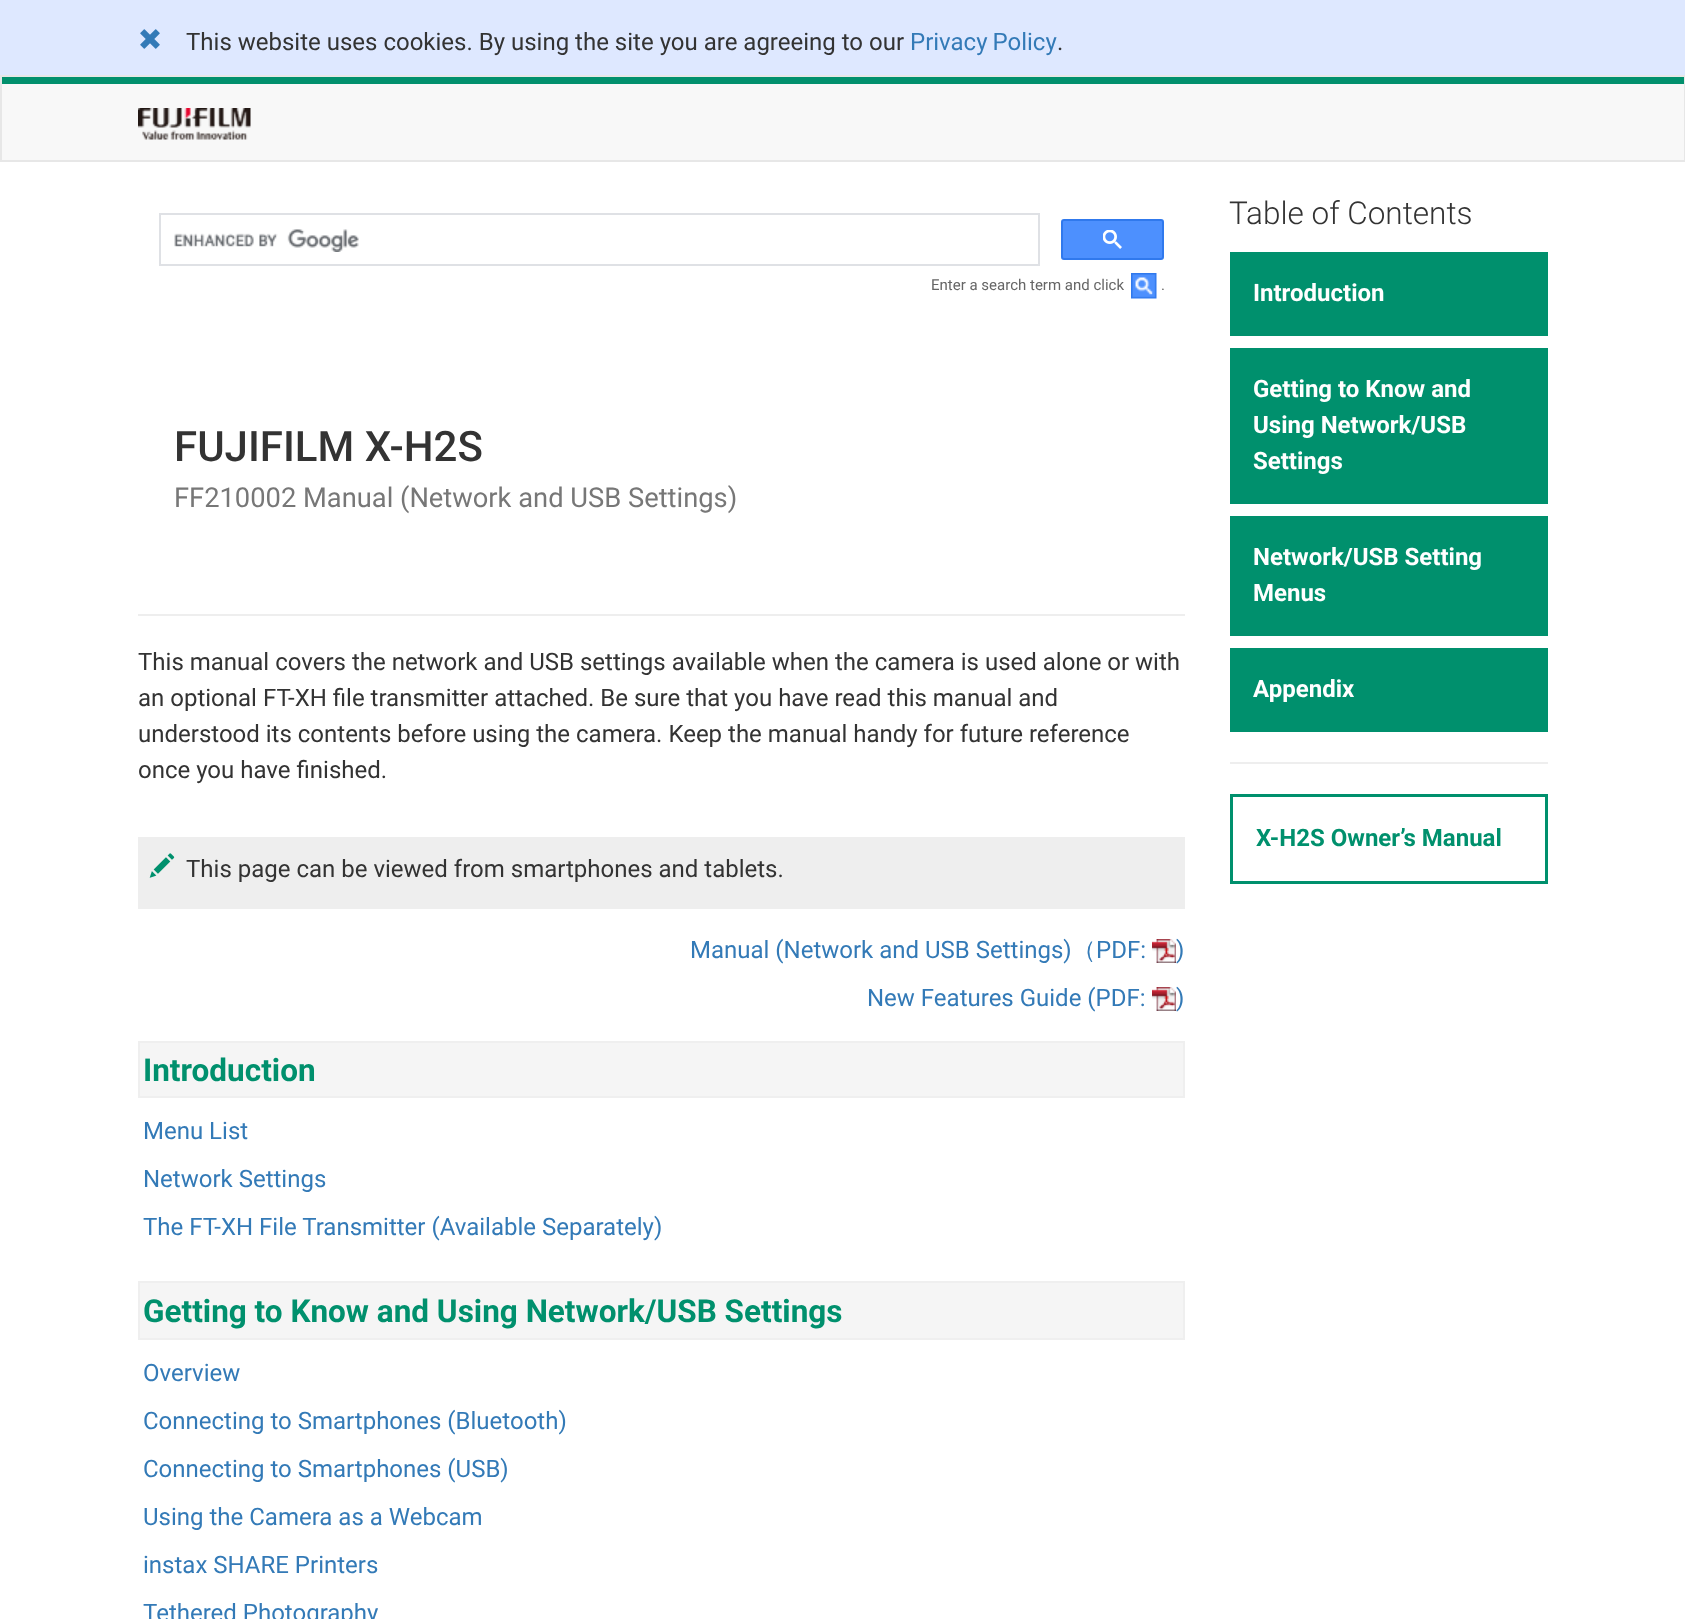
<svg xmlns="http://www.w3.org/2000/svg" width="1685" height="1619" viewBox="0 0 1685 1619">
  <rect width="100%" height="100%" fill="#ffffff"/>
  <rect x="0" y="0" width="1685" height="75" fill="#dee8ff"/>
  <image x="140" y="29" width="20" height="20" href="img1.png"/>
  <text x="186" y="50" font-family="Roboto" font-size="24" fill="#333333">This website uses cookies. By using the site you are agreeing to our</text>
  <text x="910" y="50" word-spacing="-1" font-family="Roboto" font-size="24" fill="#337ab7">Privacy Policy</text>
  <text x="1057" y="50" font-family="Roboto" font-size="24" fill="#333333">.</text>
  <rect x="2" y="84" width="1682" height="76" fill="#f8f8f8"/>
  <rect x="0" y="77" width="1685" height="7" fill="#01906d"/>
  <rect x="1" y="76" width="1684" height="85" fill="none" stroke="#e7e7e7" stroke-width="2"/>
  <image x="138" y="108" width="113" height="32" href="img2.png"/>
  <rect x="160" y="214" width="879" height="51" fill="none" stroke="#dfe1e5" stroke-width="2"/>
  <image x="174" y="229" width="185" height="23" href="img3.png"/>
  <rect x="1062" y="220" width="101" height="39" rx="2" fill="#4d90fe" stroke="#3079ed" stroke-width="2"/>
  <image x="1103" y="230" width="19" height="19" href="img4.png"/>
  <text x="931" y="290" font-family="Roboto" font-size="15" fill="#666666">Enter a search term and click</text>
  <image x="1131" y="273" width="26" height="26" href="img5.png"/>
  <text x="1161" y="290" font-family="Roboto" font-size="15" fill="#666666">.</text>
  <text x="174" y="461" font-family="Roboto" font-size="42" font-weight="500" fill="#333333">FUJIFILM X-H2S</text>
  <text x="174" y="507" font-family="Roboto" font-size="27.3" fill="#777777">FF210002 Manual (Network and USB Settings)</text>
  <rect x="138" y="614" width="1047" height="2" fill="#eeeeee"/>
  <text x="138" y="670" font-family="Roboto" font-size="24" fill="#333333">This manual covers the network and USB settings available when the camera is used alone or with</text>
  <text x="138" y="706" font-family="Roboto" font-size="24" fill="#333333">an optional FT-XH file transmitter attached. Be sure that you have read this manual and</text>
  <text x="138" y="742" font-family="Roboto" font-size="24" fill="#333333">understood its contents before using the camera. Keep the manual handy for future reference</text>
  <text x="138" y="778" font-family="Roboto" font-size="24" fill="#333333">once you have finished.</text>
  <rect x="138" y="837" width="1047" height="72" fill="#eeeeee"/>
  <image x="149" y="853" width="26" height="25" href="img6.png"/>
  <text x="186" y="877" font-family="Roboto" font-size="24" fill="#333333">This page can be viewed from smartphones and tablets.</text>
  <text x="690" y="958" font-family="Roboto" font-size="24" fill="#337ab7">Manual (Network and USB Settings)</text>
  <text x="1072" y="958" font-family="WenQuanYi Zen Hei" font-size="24" font-weight="500" fill="#337ab7">（</text>
  <text x="1096" y="958" font-family="Roboto" font-size="24" fill="#337ab7">PDF:</text>
  <image x="1152" y="939" width="24" height="24" href="img7.png"/>
  <text x="1176" y="958" font-family="Roboto" font-size="24" fill="#337ab7">)</text>
  <text x="867" y="1006" font-family="Roboto" font-size="24" fill="#337ab7">New Features Guide (PDF:</text>
  <image x="1152" y="987" width="24" height="24" href="img7.png"/>
  <text x="1176" y="1006" font-family="Roboto" font-size="24" fill="#337ab7">)</text>
  <rect x="139" y="1042" width="1045" height="55" fill="#f5f5f5" stroke="#efefef" stroke-width="2"/>
  <text x="143" y="1081" font-family="Roboto" font-size="31.5" font-weight="bold" fill="#00906d">Introduction</text>
  <text x="143" y="1139" font-family="Roboto" font-size="24" fill="#337ab7">Menu List</text>
  <text x="143" y="1187" font-family="Roboto" font-size="24" fill="#337ab7">Network Settings</text>
  <text x="143" y="1235" font-family="Roboto" font-size="24" fill="#337ab7">The FT-XH File Transmitter (Available Separately)</text>
  <rect x="139" y="1282" width="1045" height="57" fill="#f5f5f5" stroke="#efefef" stroke-width="2"/>
  <text x="143" y="1322" font-family="Roboto" font-size="31.5" font-weight="bold" fill="#00906d">Getting to Know and Using Network/USB Settings</text>
  <text x="143" y="1381" font-family="Roboto" font-size="24" fill="#337ab7">Overview</text>
  <text x="143" y="1429" font-family="Roboto" font-size="24" fill="#337ab7">Connecting to Smartphones (Bluetooth)</text>
  <text x="143" y="1477" font-family="Roboto" font-size="24" fill="#337ab7">Connecting to Smartphones (USB)</text>
  <text x="143" y="1525" font-family="Roboto" font-size="24" fill="#337ab7">Using the Camera as a Webcam</text>
  <text x="143" y="1573" font-family="Roboto" font-size="24" fill="#337ab7">instax SHARE Printers</text>
  <text x="143" y="1621" font-family="Roboto" font-size="24" fill="#337ab7">Tethered Photography</text>
  <text x="1229" y="224" font-family="Roboto" font-size="31.5" font-weight="300" fill="#333333">Table of Contents</text>
  <rect x="1230" y="252" width="318" height="84" fill="#00906d"/>
  <text x="1253" y="301" font-family="Roboto" font-size="24" font-weight="bold" fill="#ffffff">Introduction</text>
  <rect x="1230" y="348" width="318" height="156" fill="#00906d"/>
  <text x="1253" y="397" font-family="Roboto" font-size="24" font-weight="bold" fill="#ffffff">Getting to Know and</text>
  <text x="1253" y="433" font-family="Roboto" font-size="24" font-weight="bold" fill="#ffffff">Using Network/USB</text>
  <text x="1253" y="469" font-family="Roboto" font-size="24" font-weight="bold" fill="#ffffff">Settings</text>
  <rect x="1230" y="516" width="318" height="120" fill="#00906d"/>
  <text x="1253" y="565" font-family="Roboto" font-size="24" font-weight="bold" fill="#ffffff">Network/USB Setting</text>
  <text x="1253" y="601" font-family="Roboto" font-size="24" font-weight="bold" fill="#ffffff">Menus</text>
  <rect x="1230" y="648" width="318" height="84" fill="#00906d"/>
  <text x="1253" y="697" font-family="Roboto" font-size="24" font-weight="bold" fill="#ffffff">Appendix</text>
  <rect x="1230" y="762" width="318" height="2" fill="#eeeeee"/>
  <rect x="1231.5" y="795.5" width="315" height="87" fill="none" stroke="#00906d" stroke-width="3"/>
  <text x="1256" y="846" font-family="Roboto" font-size="24" font-weight="bold" fill="#00906d">X-H2S Owner’s Manual</text>
</svg>
